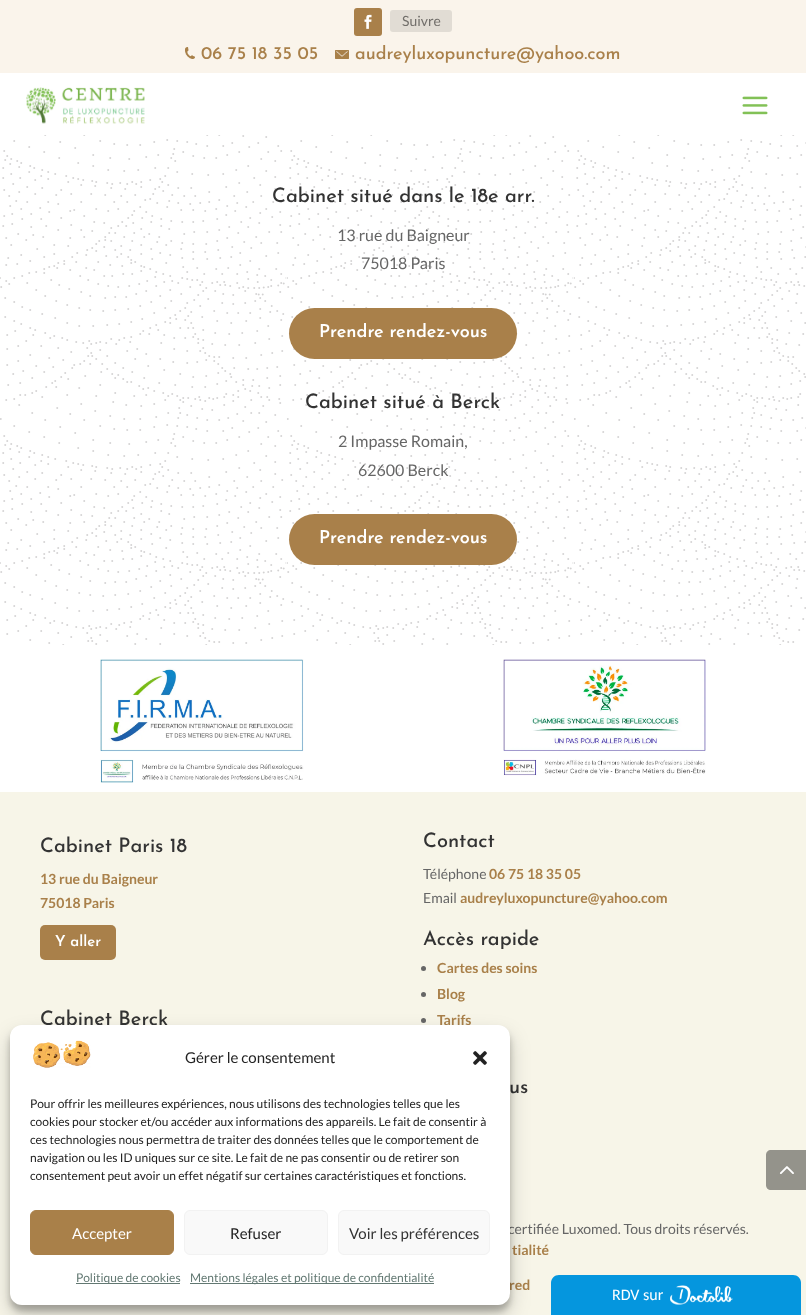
<svg xmlns="http://www.w3.org/2000/svg" width="806" height="1315" viewBox="0 0 806 1315">
  <defs>
    <filter id="blur1" x="-50%" y="-200%" width="200%" height="500%"><feGaussianBlur stdDeviation="3"/></filter>
    <filter id="blur2" x="-50%" y="-200%" width="200%" height="500%"><feGaussianBlur stdDeviation="10"/></filter>
  </defs>
  <rect width="100%" height="100%" fill="#ffffff"/>
  <rect x="0" y="0" width="806" height="73" fill="#faf4eb"/>
  <rect x="354" y="8" width="28" height="28" rx="3" fill="#a9804a"/>
  <image x="364" y="14" width="8" height="15" href="img1.png"/>
  <rect x="390" y="10" width="62" height="22" rx="3" fill="#e1dcd4"/>
  <text x="402" y="26" font-family="Lato" font-size="14" fill="#716e6a">Suivre</text>
  <image x="185" y="47" width="10" height="12" href="img2.png"/>
  <text x="201" y="59" font-family="Josefin Sans" font-size="18" font-weight="500" fill="#a9804a">06 75 18 35 05</text>
  <image x="335" y="50" width="14" height="9" href="img3.png"/>
  <text x="355" y="59" font-family="Josefin Sans" font-size="18" font-weight="500" fill="#a9804a">audreyluxopuncture@yahoo.com</text>
  <image x="26" y="87" width="119" height="37" href="img4.png"/>
  <image x="742" y="96" width="26" height="19" href="img5.png"/>
  <image x="0" y="135" width="806" height="510" href="img6.png"/>
  <text x="272" y="202" font-family="Josefin Sans" font-size="20" font-weight="500" fill="#333333">Cabinet situé dans le 18e arr.</text>
  <text x="337" y="241" font-family="Lato" font-size="16" fill="#666666">13 rue du Baigneur</text>
  <text x="361" y="269" font-family="Lato" font-size="16" fill="#666666">75018 Paris</text>
  <rect x="289" y="308" width="228" height="51" rx="25.5" fill="#a9804a"/>
  <text x="319" y="337" font-family="Josefin Sans" font-size="18" font-weight="600" fill="#ffffff">Prendre rendez-vous</text>
  <text x="305" y="408" font-family="Josefin Sans" font-size="20" font-weight="500" fill="#333333">Cabinet situé à Berck</text>
  <text x="338" y="447" font-family="Lato" font-size="16" fill="#666666">2 Impasse Romain,</text>
  <text x="358" y="476" font-family="Lato" font-size="16" fill="#666666">62600 Berck</text>
  <rect x="289" y="514" width="228" height="51" rx="25.5" fill="#a9804a"/>
  <text x="319" y="543" font-family="Josefin Sans" font-size="18" font-weight="600" fill="#ffffff">Prendre rendez-vous</text>
  <image x="100" y="659" width="204" height="124" href="img7.png"/>
  <image x="503" y="659" width="203" height="117" href="img8.png"/>
  <rect x="0" y="792" width="806" height="523" fill="#f7f5e8"/>
  <text x="40" y="852" font-family="Josefin Sans" font-size="20" font-weight="500" fill="#333333">Cabinet Paris 18</text>
  <text x="40" y="884" font-family="Lato" font-size="14" font-weight="bold" fill="#a9804a">13 rue du Baigneur</text>
  <text x="40" y="908" font-family="Lato" font-size="14" font-weight="bold" fill="#a9804a">75018 Paris</text>
  <rect x="40" y="925" width="76" height="35" rx="5" fill="#a9804a"/>
  <text x="55" y="946" font-family="Josefin Sans" font-size="15" font-weight="600" fill="#ffffff">Y aller</text>
  <text x="40" y="1025" font-family="Josefin Sans" font-size="20" font-weight="500" fill="#333333">Cabinet Berck</text>
  <text x="423" y="847" font-family="Josefin Sans" font-size="20" font-weight="500" fill="#333333">Contact</text>
  <text x="423" y="879" font-family="Lato" font-size="14" fill="#666666">Téléphone</text>
  <text x="489" y="879" font-family="Lato" font-size="14" font-weight="bold" fill="#a9804a">06 75 18 35 05</text>
  <text x="423" y="903" font-family="Lato" font-size="14" fill="#666666">Email</text>
  <text x="460" y="903" font-family="Lato" font-size="14" font-weight="bold" fill="#a9804a">audreyluxopuncture@yahoo.com</text>
  <text x="423" y="945" font-family="Josefin Sans" font-size="20" font-weight="500" fill="#333333">Accès rapide</text>
  <circle cx="423.5" cy="968.5" r="2.5" fill="#666666"/>
  <text x="437" y="973" font-family="Lato" font-size="14" font-weight="bold" fill="#a9804a">Cartes des soins</text>
  <circle cx="423.5" cy="994.5" r="2.5" fill="#666666"/>
  <text x="437" y="999" font-family="Lato" font-size="14" font-weight="bold" fill="#a9804a">Blog</text>
  <circle cx="423.5" cy="1020.5" r="2.5" fill="#666666"/>
  <text x="437" y="1025" font-family="Lato" font-size="14" font-weight="bold" fill="#a9804a">Tarifs</text>
  <text x="509" y="1093" font-family="Josefin Sans" font-size="20" font-weight="500" fill="#333333">us</text>
  <text x="508" y="1234" font-family="Lato" font-size="14" fill="#666666">certifiée Luxomed. Tous droits réservés.</text>
  <text x="512" y="1255" font-family="Lato" font-size="14" font-weight="bold" fill="#a9804a">tialité</text>
  <text x="509" y="1290" font-family="Lato" font-size="14" font-weight="bold" fill="#a9804a">red</text>
  <rect x="10" y="1031" width="500" height="280" rx="12" fill="#000000" fill-opacity="0.23" filter="url(#blur1)"/>
  <rect x="10" y="1035" width="500" height="280" rx="12" fill="#000000" fill-opacity="0.19" filter="url(#blur2)"/>
  <rect x="10" y="1025" width="500" height="280" rx="12" fill="#ffffff"/>
  <image x="33" y="1040" width="58" height="28" href="img9.png"/>
  <text x="185" y="1063" font-family="Lato" font-size="15" fill="#222222">Gérer le consentement</text>
  <image x="473" y="1051" width="14" height="14" href="img10.png"/>
  <text x="30" y="1108" font-family="Lato" font-size="12" fill="#222222">Pour offrir les meilleures expériences, nous utilisons des technologies telles que les</text>
  <text x="30" y="1126" font-family="Lato" font-size="12" fill="#222222">cookies pour stocker et/ou accéder aux informations des appareils. Le fait de consentir à</text>
  <text x="30" y="1144" font-family="Lato" font-size="12" fill="#222222">ces technologies nous permettra de traiter des données telles que le comportement de</text>
  <text x="30" y="1162" font-family="Lato" font-size="12" fill="#222222">navigation ou les ID uniques sur ce site. Le fait de ne pas consentir ou de retirer son</text>
  <text x="30" y="1180" font-family="Lato" font-size="12" fill="#222222">consentement peut avoir un effet négatif sur certaines caractéristiques et fonctions.</text>
  <rect x="30.5" y="1210.5" width="143" height="44" rx="5.5" fill="#a98049" stroke="#a98049"/>
  <text x="72" y="1239" font-family="Lato" font-size="15" fill="#ffffff">Accepter</text>
  <rect x="184.5" y="1210.5" width="143" height="44" rx="5.5" fill="#f9f9f9" stroke="#f2f2f2"/>
  <text x="230" y="1239" font-family="Lato" font-size="15" fill="#222222">Refuser</text>
  <rect x="338.5" y="1210.5" width="151" height="44" rx="5.5" fill="#f9f9f9" stroke="#f2f2f2"/>
  <text x="349" y="1239" font-family="Lato" font-size="15" fill="#333333">Voir les préférences</text>
  <rect x="76" y="1283" width="104" height="1" fill="#627872"/>
  <text x="76" y="1282" font-family="Lato" font-size="12" fill="#627872">Politique de cookies</text>
  <rect x="190" y="1283" width="244" height="1" fill="#627872"/>
  <text x="190" y="1282" font-family="Lato" font-size="12" fill="#627872">Mentions légales et politique de confidentialité</text>
  <path d="M771 1150H806V1190H771C768 1190 766 1188 766 1185V1155C766 1152 768 1150 771 1150Z" fill="#94938b"/>
  <image x="779" y="1166" width="15" height="8" href="img11.png"/>
  <path d="M559 1275H793C797.5 1275 801 1278.5 801 1283V1315H551V1283C551 1278.5 554.5 1275 559 1275Z" fill="#0596de"/>
  <text x="612" y="1300" font-family="Carlito" font-size="16" fill="#ffffff">RDV sur</text>
  <image x="670" y="1285" width="63" height="20" href="img12.png"/>
</svg>
